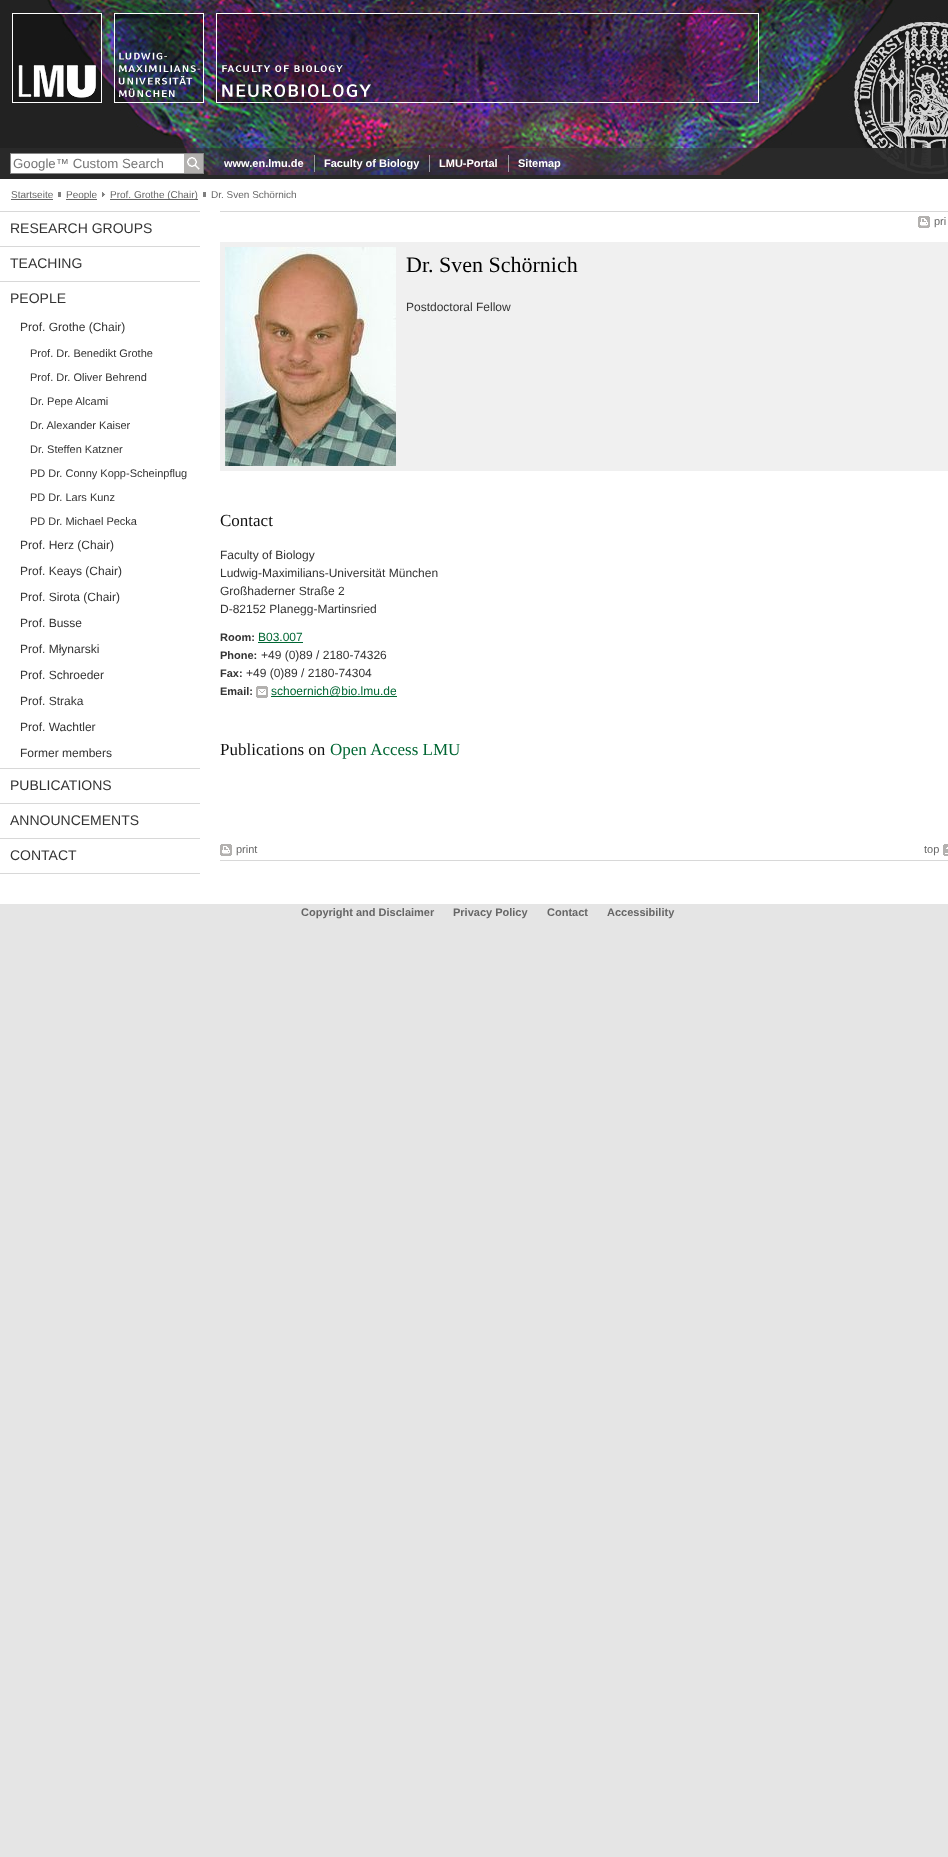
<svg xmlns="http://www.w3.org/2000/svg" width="948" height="1857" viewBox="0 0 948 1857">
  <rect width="100%" height="100%" fill="#e5e5e5"/>
  <rect x="0" y="179" width="948" height="725" fill="#ffffff"/>
  <image x="0" y="0" width="948" height="148" href="img1.png"/>
  <image x="0" y="148" width="948" height="31" href="img2.png"/>
  <rect x="11" y="154" width="173" height="19" fill="#ffffff"/>
  <rect x="10.5" y="153.5" width="193" height="20" fill="none" stroke="#888888"/>
  <text x="13" y="168" font-family="Liberation Sans" font-size="13.25" fill="#757575">Google™ Custom Search</text>
  <image x="184" y="154" width="19" height="19" href="img3.png"/>
  <text x="224" y="167" font-family="Liberation Sans" font-size="11" font-weight="bold" fill="#ffffff">www.en.lmu.de</text>
  <rect x="314" y="155" width="1" height="17" fill="#ffffff" fill-opacity="0.5"/>
  <text x="324" y="167" font-family="Liberation Sans" font-size="11" font-weight="bold" fill="#ffffff">Faculty of Biology</text>
  <rect x="429" y="155" width="1" height="17" fill="#ffffff" fill-opacity="0.5"/>
  <text x="439" y="167" font-family="Liberation Sans" font-size="11" font-weight="bold" fill="#ffffff">LMU-Portal</text>
  <rect x="508" y="155" width="1" height="17" fill="#ffffff" fill-opacity="0.5"/>
  <text x="518" y="167" font-family="Liberation Sans" font-size="11" font-weight="bold" fill="#ffffff">Sitemap</text>
  <rect x="928" y="179" width="14" height="1" fill="#fafafa"/>
  <text x="11" y="198" font-family="Liberation Sans" font-size="10" fill="#666666">Startseite</text>
  <rect x="11" y="199" width="42" height="1" fill="#666666"/>
  <rect x="58" y="192" width="3" height="5" fill="#7f7f7f"/>
  <rect x="66" y="199" width="31" height="1" fill="#666666"/>
  <text x="66" y="198" font-family="Liberation Sans" font-size="10" fill="#666666">People</text>
  <image x="102" y="192" width="4" height="5" href="img4.png"/>
  <rect x="110" y="199" width="88" height="1" fill="#666666"/>
  <text x="110" y="198" font-family="Liberation Sans" font-size="10" fill="#666666">Prof. Grothe (Chair)</text>
  <rect x="203" y="192" width="3" height="5" fill="#7f7f7f"/>
  <text x="211" y="198" font-family="Liberation Sans" font-size="10" fill="#666666">Dr. Sven Schörnich</text>
  <rect x="0" y="211" width="200" height="1" fill="#d8d8d8"/>
  <rect x="0" y="246" width="200" height="1" fill="#d8d8d8"/>
  <text x="10" y="233" font-family="Liberation Sans" font-size="14" fill="#333333">RESEARCH GROUPS</text>
  <rect x="0" y="281" width="200" height="1" fill="#d8d8d8"/>
  <text x="10" y="268" font-family="Liberation Sans" font-size="14" fill="#333333">TEACHING</text>
  <rect x="0" y="768" width="200" height="1" fill="#d8d8d8"/>
  <text x="10" y="303" font-family="Liberation Sans" font-size="14" fill="#333333">PEOPLE</text>
  <text x="20" y="331" font-family="Liberation Sans" font-size="12" fill="#333333">Prof. Grothe (Chair)</text>
  <text x="30" y="357" font-family="Liberation Sans" font-size="11" fill="#333333">Prof. Dr. Benedikt Grothe</text>
  <text x="30" y="381" font-family="Liberation Sans" font-size="11" fill="#333333">Prof. Dr. Oliver Behrend</text>
  <text x="30" y="405" font-family="Liberation Sans" font-size="11" fill="#333333">Dr. Pepe Alcami</text>
  <text x="30" y="429" font-family="Liberation Sans" font-size="11" fill="#333333">Dr. Alexander Kaiser</text>
  <text x="30" y="453" font-family="Liberation Sans" font-size="11" fill="#333333">Dr. Steffen Katzner</text>
  <text x="30" y="477" font-family="Liberation Sans" font-size="11" fill="#333333">PD Dr. Conny Kopp-Scheinpflug</text>
  <text x="30" y="501" font-family="Liberation Sans" font-size="11" fill="#333333">PD Dr. Lars Kunz</text>
  <text x="30" y="525" font-family="Liberation Sans" font-size="11" fill="#333333">PD Dr. Michael Pecka</text>
  <text x="20" y="549" font-family="Liberation Sans" font-size="12" fill="#333333">Prof. Herz (Chair)</text>
  <text x="20" y="575" font-family="Liberation Sans" font-size="12" fill="#333333">Prof. Keays (Chair)</text>
  <text x="20" y="601" font-family="Liberation Sans" font-size="12" fill="#333333">Prof. Sirota (Chair)</text>
  <text x="20" y="627" font-family="Liberation Sans" font-size="12" fill="#333333">Prof. Busse</text>
  <text x="20" y="653" font-family="Liberation Sans" font-size="12" fill="#333333">Prof. Młynarski</text>
  <text x="20" y="679" font-family="Liberation Sans" font-size="12" fill="#333333">Prof. Schroeder</text>
  <text x="20" y="705" font-family="Liberation Sans" font-size="12" fill="#333333">Prof. Straka</text>
  <text x="20" y="731" font-family="Liberation Sans" font-size="12" fill="#333333">Prof. Wachtler</text>
  <text x="20" y="757" font-family="Liberation Sans" font-size="12" fill="#333333">Former members</text>
  <rect x="0" y="803" width="200" height="1" fill="#d8d8d8"/>
  <text x="10" y="790" font-family="Liberation Sans" font-size="14" fill="#333333">PUBLICATIONS</text>
  <rect x="0" y="838" width="200" height="1" fill="#d8d8d8"/>
  <text x="10" y="825" font-family="Liberation Sans" font-size="14" fill="#333333">ANNOUNCEMENTS</text>
  <rect x="0" y="873" width="200" height="1" fill="#d8d8d8"/>
  <text x="10" y="860" font-family="Liberation Sans" font-size="14" fill="#333333">CONTACT</text>
  <rect x="220" y="211" width="728" height="1" fill="#d8d8d8"/>
  <image x="918" y="216" width="12" height="12" href="img5.png"/>
  <text x="934" y="225" font-family="Liberation Sans" font-size="11" fill="#666666">pri</text>
  <rect x="220" y="242" width="728" height="229" fill="#f0f0f0"/>
  <image x="225" y="247" width="171" height="219" href="img6.png"/>
  <text x="406" y="272" font-family="Liberation Serif" font-size="22" fill="#000000">Dr. Sven Schörnich</text>
  <text x="406" y="311" font-family="Liberation Sans" font-size="12" fill="#333333">Postdoctoral Fellow</text>
  <text x="220" y="526" font-family="Liberation Serif" font-size="17" fill="#111111">Contact</text>
  <text x="220" y="559" font-family="Liberation Sans" font-size="12" fill="#333333">Faculty of Biology</text>
  <text x="220" y="577" font-family="Liberation Sans" font-size="12" fill="#333333">Ludwig-Maximilians-Universität München</text>
  <text x="220" y="595" font-family="Liberation Sans" font-size="12" fill="#333333">Großhaderner Straße 2</text>
  <text x="220" y="613" font-family="Liberation Sans" font-size="12" fill="#333333">D-82152 Planegg-Martinsried</text>
  <text x="220" y="641" font-family="Liberation Sans" font-size="11" font-weight="bold" fill="#333333">Room:</text>
  <text x="258" y="641" font-family="Liberation Sans" font-size="12" fill="#006633">B03.007</text>
  <rect x="258" y="642" width="45" height="1" fill="#006633"/>
  <text x="220" y="659" font-family="Liberation Sans" font-size="11" font-weight="bold" fill="#333333">Phone:</text>
  <text x="261" y="659" font-family="Liberation Sans" font-size="12" fill="#333333">+49 (0)89 / 2180-74326</text>
  <text x="220" y="677" font-family="Liberation Sans" font-size="11" font-weight="bold" fill="#333333">Fax:</text>
  <text x="246" y="677" font-family="Liberation Sans" font-size="12" fill="#333333">+49 (0)89 / 2180-74304</text>
  <text x="220" y="695" font-family="Liberation Sans" font-size="11" font-weight="bold" fill="#333333">Email:</text>
  <image x="256" y="686" width="12" height="12" href="img7.png"/>
  <rect x="271" y="696" width="126" height="1" fill="#006633"/>
  <text x="271" y="695" font-family="Liberation Sans" font-size="12" fill="#006633">schoernich@bio.lmu.de</text>
  <text x="220" y="755" font-family="Liberation Serif" font-size="17" fill="#111111">Publications on</text>
  <text x="330" y="755" font-family="Liberation Serif" font-size="17" fill="#006633">Open Access LMU</text>
  <rect x="220" y="860" width="728" height="1" fill="#d8d8d8"/>
  <image x="220" y="844" width="12" height="12" href="img5.png"/>
  <text x="236" y="853" font-family="Liberation Sans" font-size="11" fill="#666666">print</text>
  <image x="943" y="844" width="5" height="12" href="img8.png"/>
  <text x="924" y="853" font-family="Liberation Sans" font-size="11" fill="#666666">top</text>
  <text x="301" y="916" font-family="Liberation Sans" font-size="11" font-weight="bold" fill="#666666">Copyright and Disclaimer</text>
  <text x="453" y="916" font-family="Liberation Sans" font-size="11" font-weight="bold" fill="#666666">Privacy Policy</text>
  <text x="547" y="916" font-family="Liberation Sans" font-size="11" font-weight="bold" fill="#666666">Contact</text>
  <text x="607" y="916" font-family="Liberation Sans" font-size="11" font-weight="bold" fill="#666666">Accessibility</text>
</svg>
